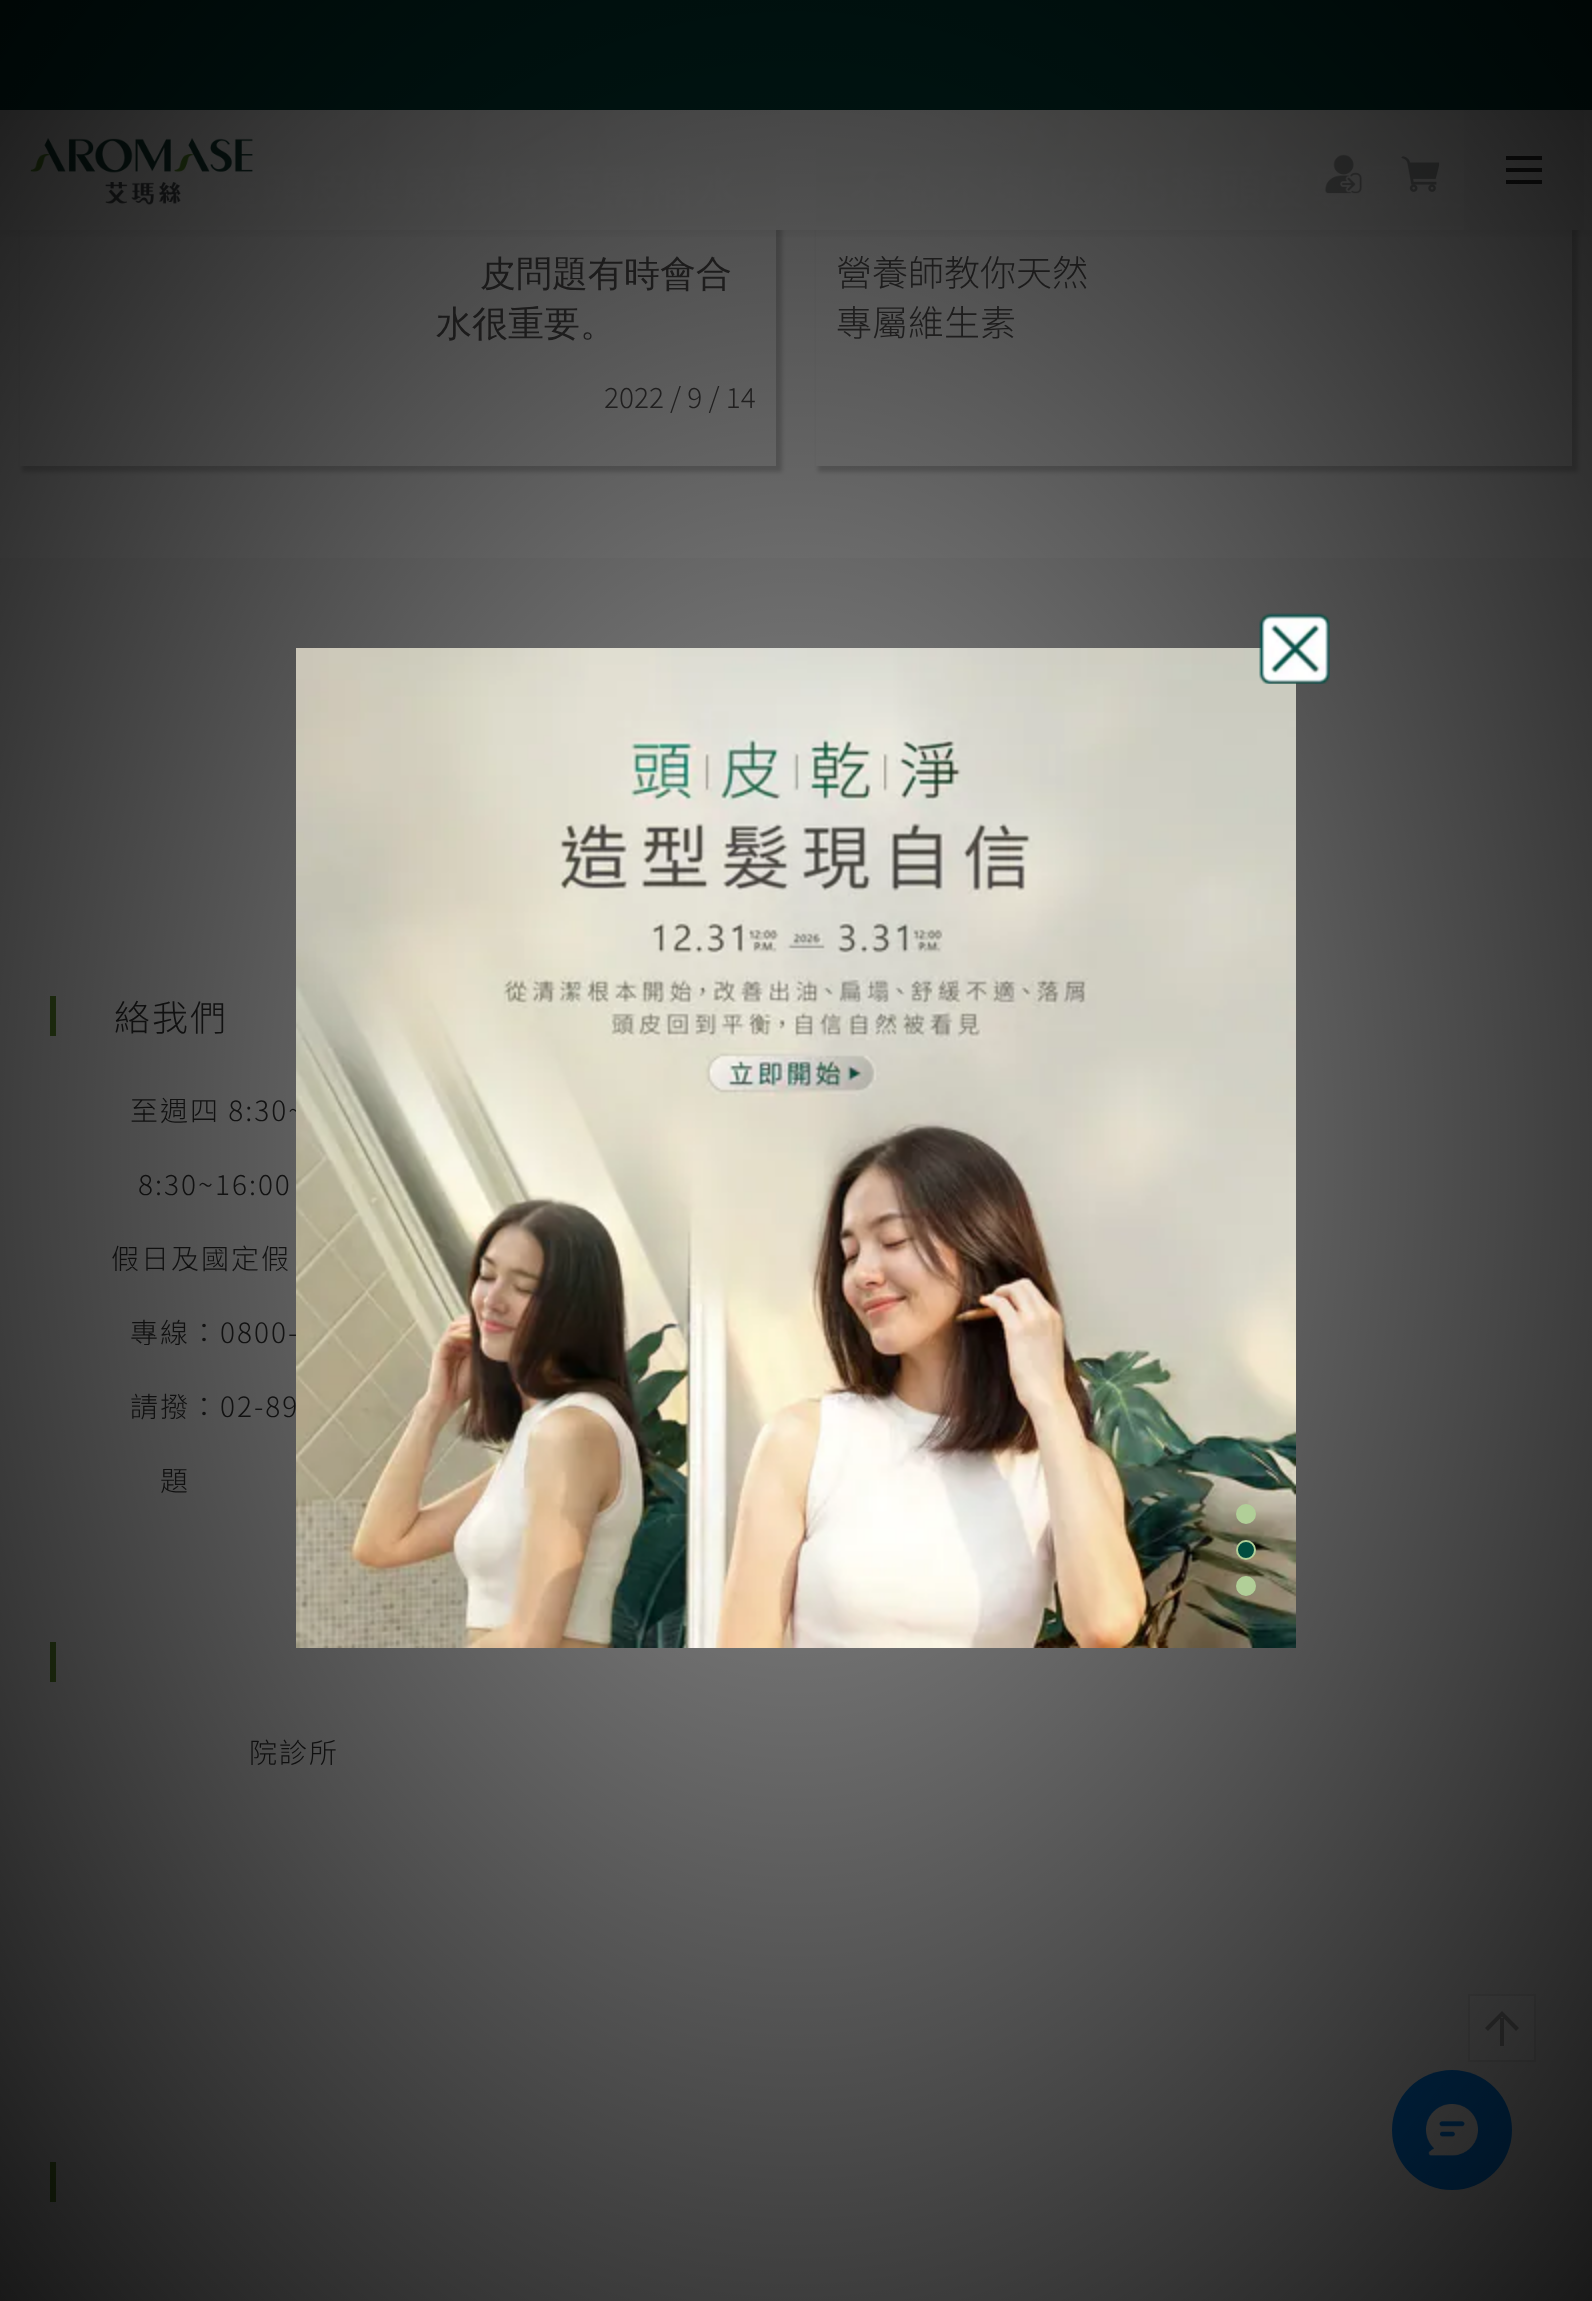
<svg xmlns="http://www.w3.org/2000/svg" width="1592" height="2301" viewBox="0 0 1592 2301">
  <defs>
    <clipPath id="clip1"><path d="M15 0H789V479H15ZM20-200H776V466H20Z" clip-rule="evenodd"/></clipPath>
    <filter id="blur1" x="-50%" y="-200%" width="200%" height="500%"><feGaussianBlur stdDeviation="2"/></filter>
    <clipPath id="clip2"><path d="M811 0H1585V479H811ZM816-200H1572V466H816Z" clip-rule="evenodd"/></clipPath>
    <filter id="blur2" x="-50%" y="-200%" width="200%" height="500%"><feGaussianBlur stdDeviation="6"/></filter>
    <clipPath id="clip3"><rect x="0" y="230" width="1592" height="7"/></clipPath>
    <radialGradient id="g1" gradientUnits="userSpaceOnUse" cx="0" cy="0" r="1" gradientTransform="matrix(1126 0 0 1628 796 1151)"><stop offset="0" stop-color="#000000" stop-opacity="0.4"/><stop offset="1" stop-color="#000000" stop-opacity="0.9"/></radialGradient>
  </defs>
  <rect width="100%" height="100%" fill="#ffffff"/>
  <g clip-path="url(#clip1)">
    <rect x="22" y="-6" width="760" height="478" fill="#cfcfcf" filter="url(#blur1)"/>
  </g>
  <image x="20" y="110" width="756" height="116" href="img6.png"/>
  <g clip-path="url(#clip2)">
    <rect x="818" y="-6" width="760" height="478" fill="#cfcfcf" filter="url(#blur1)"/>
  </g>
  <image x="816" y="110" width="648" height="116" href="img7.png"/>
  <rect x="0" y="4" width="1592" height="110" fill="#000000" fill-opacity="0.06" filter="url(#blur2)"/>
  <rect x="0" y="0" width="1592" height="110" fill="#00423a"/>
  <g clip-path="url(#clip3)">
    <rect x="0" y="114" width="1592" height="120" fill="#000000" fill-opacity="0.06" filter="url(#blur2)"/>
  </g>
  <rect x="0" y="110" width="1592" height="120" fill="#ffffff" fill-opacity="0.98"/>
  <image x="30" y="138" width="223" height="67" href="img3.png"/>
  <image x="1325" y="154" width="37" height="40" href="img4.png"/>
  <image x="1401" y="156" width="39" height="36" href="img5.png"/>
  <rect x="1464" y="110" width="120" height="120" fill="#f7f7f7"/>
  <rect x="1506" y="168" width="36" height="4" fill="#333333"/>
  <rect x="1506" y="156" width="36" height="4" fill="#333333"/>
  <rect x="1506" y="180" width="36" height="4" fill="#333333"/>
  <text x="480" y="286" font-family="WenQuanYi Zen Hei" font-size="36" font-weight="500" fill="#595757">⽪問題有時會合</text>
  <text x="436" y="336" font-family="WenQuanYi Zen Hei" font-size="36" font-weight="500" fill="#595757">⽔很重要。</text>
  <text x="604" y="408" font-family="Noto Sans TC" font-size="28" font-weight="300" fill="#595757">2022 / 9 / 14</text>
  <text x="836" y="286" font-family="Noto Sans TC" font-size="36" font-weight="300" fill="#595757">營養師教你天然</text>
  <text x="836" y="336" font-family="Noto Sans TC" font-size="36" font-weight="300" fill="#595757">專屬維生素</text>
  <rect x="0" y="558" width="1592" height="1743" fill="#f8f8f8"/>
  <rect x="50" y="996" width="6" height="40" fill="#659531"/>
  <text x="114" y="1031" font-family="Noto Sans TC" font-size="36" font-weight="300" letter-spacing="2" fill="#333333">絡我們</text>
  <text x="130" y="1121" font-family="Noto Sans TC" font-size="28" font-weight="300" letter-spacing="2" fill="#333333">至週四 8:30~</text>
  <text x="138" y="1195" font-family="Noto Sans TC" font-size="28" font-weight="300" letter-spacing="2" fill="#333333">8:30~16:00</text>
  <text x="111" y="1269" font-family="Noto Sans TC" font-size="28" font-weight="300" letter-spacing="2" fill="#333333">假日及國定假</text>
  <text x="130" y="1343" font-family="Noto Sans TC" font-size="28" font-weight="300" letter-spacing="2" fill="#333333">專線：0800-</text>
  <text x="130" y="1417" font-family="Noto Sans TC" font-size="28" font-weight="300" letter-spacing="2" fill="#333333">請撥：02-89</text>
  <text x="160" y="1491" font-family="Noto Sans TC" font-size="28" font-weight="300" letter-spacing="2" fill="#333333">題</text>
  <rect x="50" y="1642" width="6" height="40" fill="#659531"/>
  <text x="249" y="1763" font-family="Noto Sans TC" font-size="28" font-weight="300" letter-spacing="2" fill="#333333">院診所</text>
  <rect x="50" y="2162" width="6" height="40" fill="#659531"/>
  <rect x="1469" y="1995" width="66" height="66" fill="#ffffff" stroke="#e6e6e6" stroke-width="2"/>
  <path d="M1502 2011L1519 2028L1516 2031L1502 2016.5ZM1485 2028L1502 2011V2016.5L1488 2031Z" fill="#adadad"/>
  <rect x="1500" y="2018" width="4" height="28" fill="#999999" fill-opacity="0.8"/>
  <circle cx="1452" cy="2130" r="60" fill="#0088fe"/>
  <image x="1426" y="2104" width="52" height="52" href="img8.png"/>
  <rect x="0" y="0" width="1592" height="2301" fill="url(#g1)"/>
  <image x="296" y="648" width="1000" height="1000" href="img2.png"/>
  <image x="1259" y="613" width="71" height="71" href="img1.png"/>
  <circle cx="1246" cy="1514" r="9" fill="#b1cf98" stroke="#b1cf98" stroke-width="2"/>
  <circle cx="1246" cy="1550" r="9" fill="#004c3f" stroke="#b1cf98" stroke-width="2"/>
  <circle cx="1246" cy="1586" r="9" fill="#b1cf98" stroke="#b1cf98" stroke-width="2"/>
</svg>
